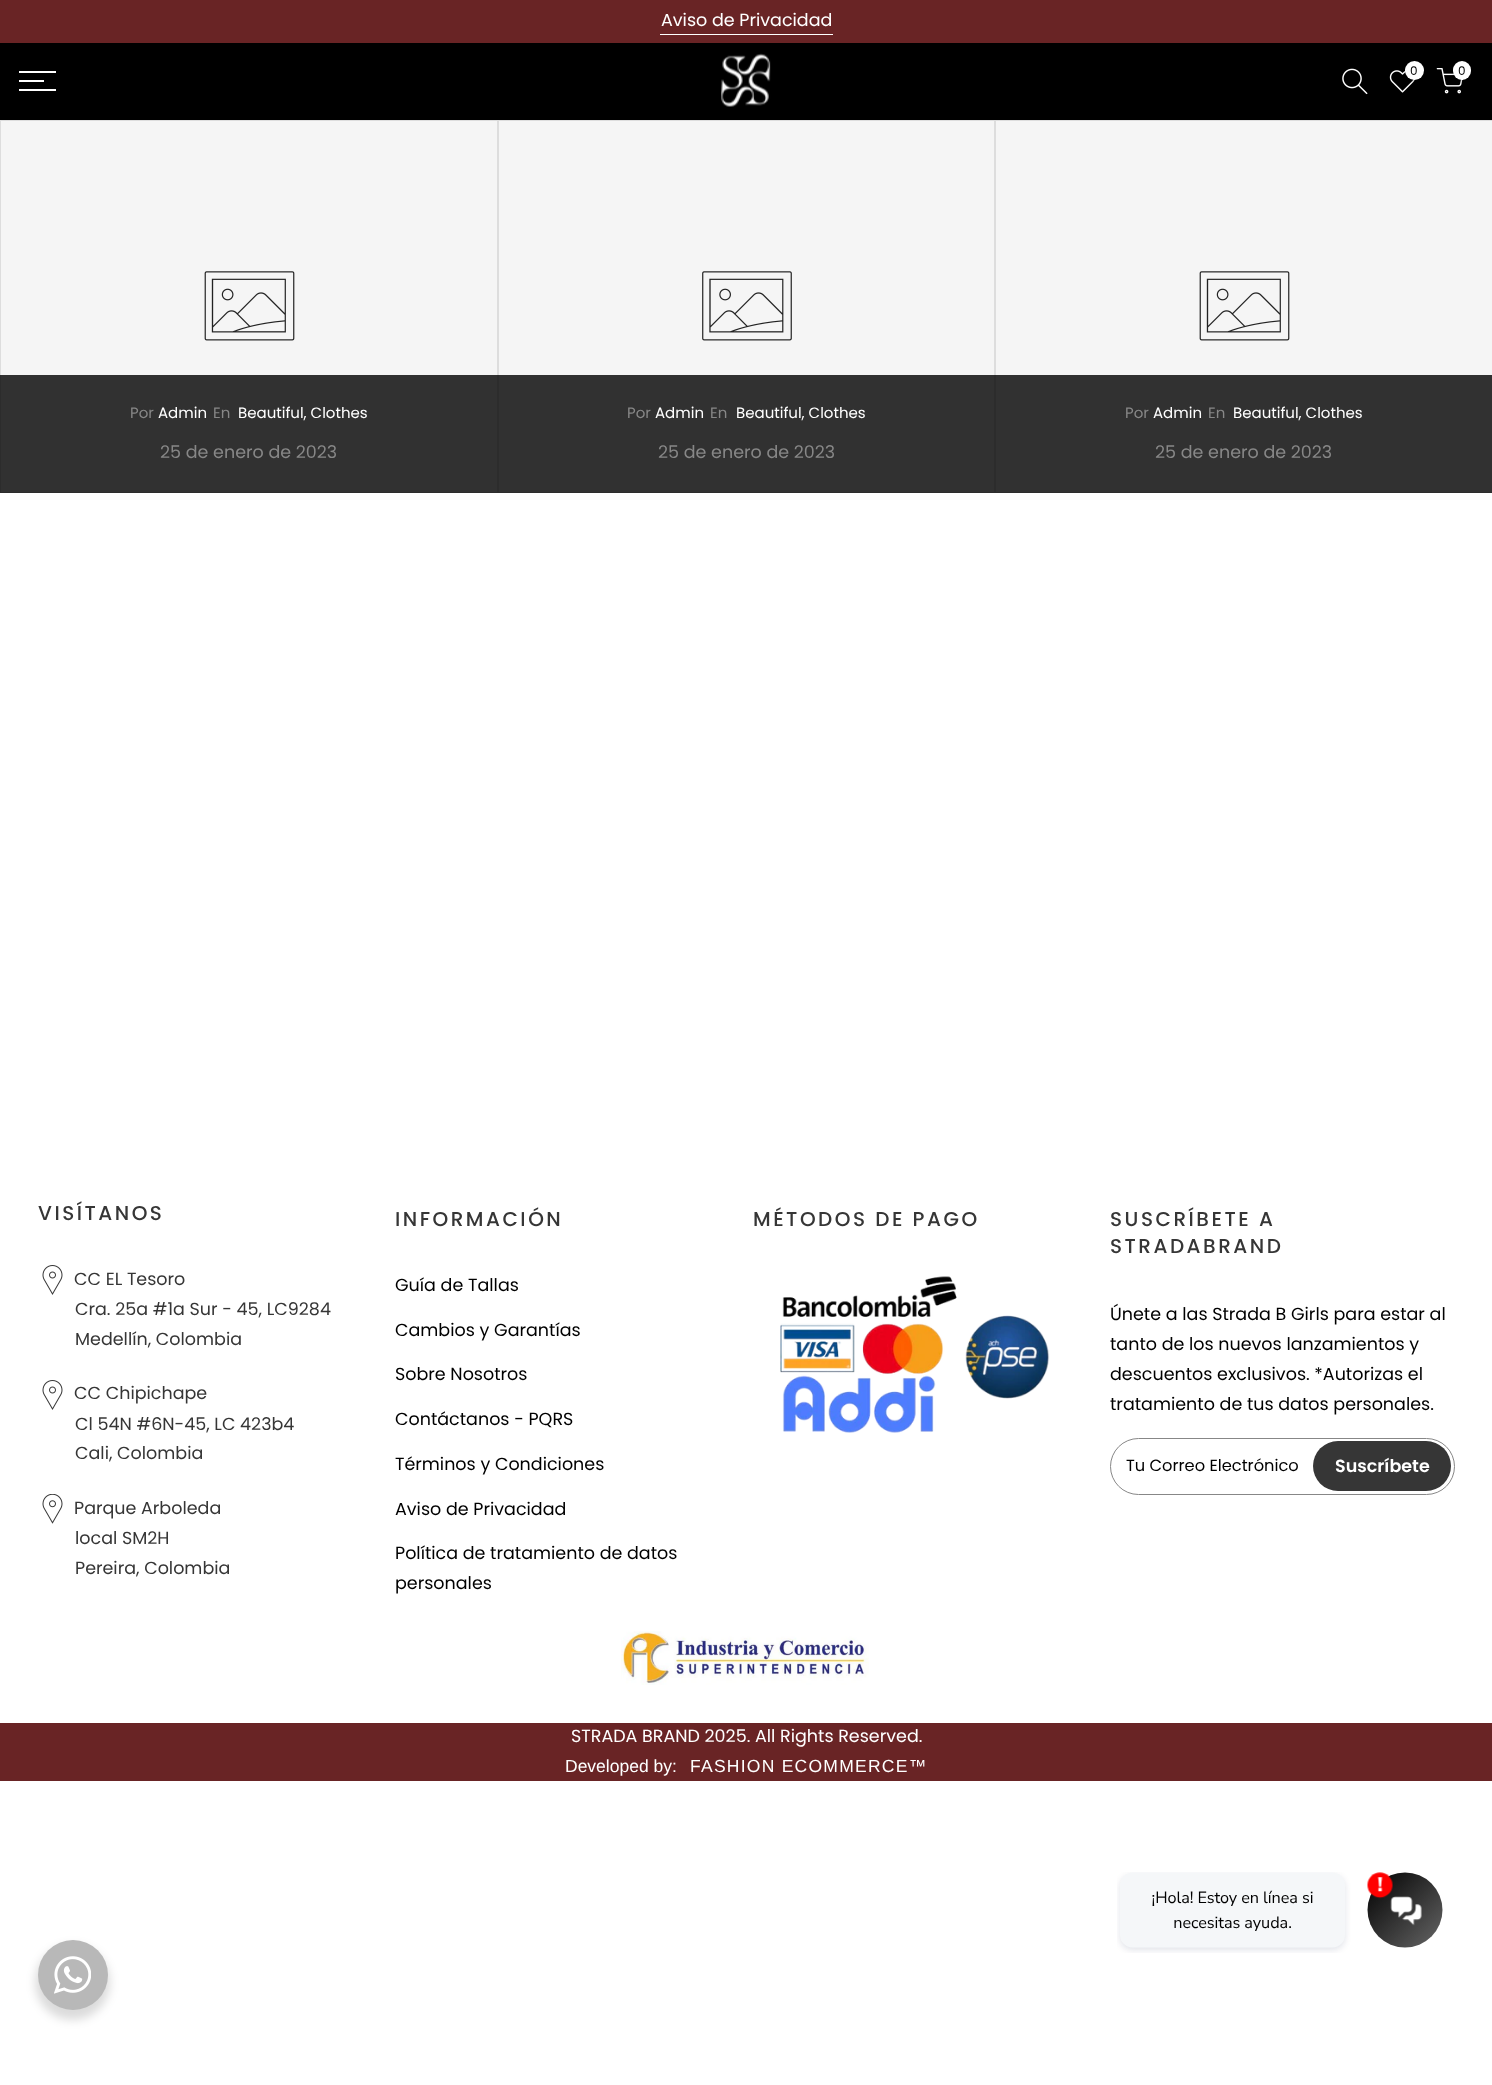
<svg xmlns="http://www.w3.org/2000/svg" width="1492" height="2085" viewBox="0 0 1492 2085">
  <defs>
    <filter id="blur1" x="-50%" y="-200%" width="200%" height="500%"><feGaussianBlur stdDeviation="2"/></filter>
    <filter id="blur2" x="-50%" y="-200%" width="200%" height="500%"><feGaussianBlur stdDeviation="5"/></filter>
  </defs>
  <rect width="100%" height="100%" fill="#ffffff"/>
  <rect x="0" y="0" width="1492" height="43" fill="#692425"/>
  <text x="661" y="26" font-family="Poppins" font-size="17.5" fill="#ffffff">Aviso de Privacidad</text>
  <rect x="660" y="34" width="173" height="1" fill="#ffffff"/>
  <rect x="0" y="43" width="1492" height="77" fill="#000000"/>
  <image x="721" y="53" width="50" height="54" href="img1.png"/>
  <image x="1342" y="68" width="26" height="27" href="img2.png"/>
  <image x="1389" y="70" width="26" height="23" href="img3.png"/>
  <rect x="1406" y="63" width="19" height="18" rx="9" fill="#000000" fill-opacity="0.3" filter="url(#blur1)"/>
  <circle cx="1414.5" cy="70.5" r="9.5" fill="#ffffff"/>
  <text x="1410" y="75" font-family="Poppins" font-size="12" fill="#000000">0</text>
  <image x="1436" y="68" width="27" height="26" href="img4.png"/>
  <rect x="1454" y="63" width="19" height="18" rx="9" fill="#000000" fill-opacity="0.3" filter="url(#blur1)"/>
  <rect x="1453" y="61" width="18" height="19" rx="9" fill="#ffffff"/>
  <text x="1458" y="75" font-family="Poppins" font-size="12" fill="#000000">0</text>
  <rect x="19" y="71" width="37" height="2" fill="#ffffff"/>
  <rect x="19" y="80" width="25" height="2" fill="#ffffff"/>
  <rect x="19" y="89" width="37" height="2" fill="#ffffff"/>
  <rect x="0.5" y="120.5" width="497" height="372" fill="#f5f5f5" stroke="#dddddd"/>
  <image x="204" y="271" width="91" height="70" href="img5.png"/>
  <rect x="0" y="375" width="498" height="118" fill="#000000" fill-opacity="0.8"/>
  <text x="130" y="418" font-family="Poppins" font-size="15" fill="#878787">Por</text>
  <text x="158" y="418" font-family="Poppins" font-size="15" fill="#ffffff">Admin</text>
  <text x="213" y="418" font-family="Poppins" font-size="15" fill="#878787">En</text>
  <text x="238" y="418" font-family="Poppins" font-size="15" fill="#ffffff">Beautiful, Clothes</text>
  <text x="160" y="458" font-family="Poppins" font-size="17.5" fill="#878787">25 de enero de 2023</text>
  <rect x="498.5" y="120.5" width="496" height="372" fill="#f5f5f5" stroke="#dddddd"/>
  <image x="702" y="271" width="90" height="70" href="img6.png"/>
  <rect x="498" y="375" width="497" height="118" fill="#000000" fill-opacity="0.8"/>
  <text x="627" y="418" font-family="Poppins" font-size="15" fill="#878787">Por</text>
  <text x="655" y="418" font-family="Poppins" font-size="15" fill="#ffffff">Admin</text>
  <text x="710" y="418" font-family="Poppins" font-size="15" fill="#878787">En</text>
  <text x="736" y="418" font-family="Poppins" font-size="15" fill="#ffffff">Beautiful, Clothes</text>
  <text x="658" y="458" font-family="Poppins" font-size="17.5" fill="#878787">25 de enero de 2023</text>
  <rect x="995.5" y="120.5" width="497" height="372" fill="#f5f5f5" stroke="#dddddd"/>
  <image x="1199" y="271" width="91" height="70" href="img5.png"/>
  <rect x="995" y="375" width="497" height="118" fill="#000000" fill-opacity="0.8"/>
  <text x="1125" y="418" font-family="Poppins" font-size="15" fill="#878787">Por</text>
  <text x="1153" y="418" font-family="Poppins" font-size="15" fill="#ffffff">Admin</text>
  <text x="1208" y="418" font-family="Poppins" font-size="15" fill="#878787">En</text>
  <text x="1233" y="418" font-family="Poppins" font-size="15" fill="#ffffff">Beautiful, Clothes</text>
  <text x="1155" y="458" font-family="Poppins" font-size="17.5" fill="#878787">25 de enero de 2023</text>
  <text x="38" y="1220" font-family="Poppins" font-size="20" font-weight="500" letter-spacing="2.5" fill="#363636">VISÍTANOS</text>
  <image x="42" y="1265" width="21" height="30" href="img7.png"/>
  <text x="74" y="1285" font-family="Poppins" font-size="17.5" fill="#363636">CC EL Tesoro</text>
  <text x="75" y="1315" font-family="Poppins" font-size="17.5" fill="#363636">Cra. 25a #1a Sur - 45, LC9284</text>
  <text x="75" y="1345" font-family="Poppins" font-size="17.5" fill="#363636">Medellín, Colombia</text>
  <image x="42" y="1380" width="21" height="30" href="img7.png"/>
  <text x="74" y="1399" font-family="Poppins" font-size="17.5" fill="#363636">CC Chipichape</text>
  <text x="75" y="1430" font-family="Poppins" font-size="17.5" fill="#363636">Cl 54N #6N-45, LC 423b4</text>
  <text x="75" y="1459" font-family="Poppins" font-size="17.5" fill="#363636">Cali, Colombia</text>
  <image x="42" y="1494" width="21" height="30" href="img8.png"/>
  <text x="74" y="1514" font-family="Poppins" font-size="17.5" fill="#363636">Parque Arboleda</text>
  <text x="75" y="1544" font-family="Poppins" font-size="17.5" fill="#363636">local SM2H</text>
  <text x="75" y="1574" font-family="Poppins" font-size="17.5" fill="#363636">Pereira, Colombia</text>
  <text x="395" y="1226" font-family="Poppins" font-size="20" font-weight="500" letter-spacing="2.5" fill="#363636">INFORMACIÓN</text>
  <text x="395" y="1291" font-family="Poppins" font-size="17.5" fill="#000000">Guía de Tallas</text>
  <text x="395" y="1336" font-family="Poppins" font-size="17.5" fill="#000000">Cambios y Garantías</text>
  <text x="395" y="1380" font-family="Poppins" font-size="17.5" fill="#000000">Sobre Nosotros</text>
  <text x="395" y="1425" font-family="Poppins" font-size="17.5" fill="#000000">Contáctanos - PQRS</text>
  <text x="395" y="1470" font-family="Poppins" font-size="17.5" fill="#000000">Términos y Condiciones</text>
  <text x="395" y="1515" font-family="Poppins" font-size="17.5" fill="#000000">Aviso de Privacidad</text>
  <text x="395" y="1559" font-family="Poppins" font-size="17.5" fill="#000000">Política de tratamiento de datos</text>
  <text x="395" y="1589" font-family="Poppins" font-size="17.5" fill="#000000">personales</text>
  <text x="753" y="1226" font-family="Poppins" font-size="20" font-weight="500" letter-spacing="2.5" fill="#363636">MÉTODOS DE PAGO</text>
  <image x="780" y="1276" width="270" height="157" href="img9.png"/>
  <text x="1110" y="1226" font-family="Poppins" font-size="20" font-weight="500" letter-spacing="2.5" fill="#363636">SUSCRÍBETE A</text>
  <text x="1110" y="1253" font-family="Poppins" font-size="20" font-weight="500" letter-spacing="2.5" fill="#363636">STRADABRAND</text>
  <text x="1110" y="1320" font-family="Poppins" font-size="17.5" fill="#000000">Únete a las Strada B Girls para estar al</text>
  <text x="1110" y="1350" font-family="Poppins" font-size="17.5" fill="#000000">tanto de los nuevos lanzamientos y</text>
  <text x="1110" y="1380" font-family="Poppins" font-size="17.5" fill="#000000">descuentos exclusivos. *Autorizas el</text>
  <text x="1110" y="1410" font-family="Poppins" font-size="17.5" fill="#000000">tratamiento de tus datos personales.</text>
  <rect x="1110.5" y="1438.5" width="344" height="56" rx="28" fill="none" stroke="#878787"/>
  <text x="1126" y="1471" font-family="Poppins" font-size="16.25" fill="#000000">Tu Correo Electrónico</text>
  <rect x="1313" y="1441" width="138" height="50" rx="25" fill="#363636"/>
  <text x="1335" y="1472" font-family="Poppins" font-size="17.5" font-weight="600" fill="#ffffff">Suscríbete</text>
  <image x="621" y="1631" width="248" height="54" href="img10.png"/>
  <rect x="0" y="1723" width="1492" height="58" fill="#692425"/>
  <text x="571" y="1742" font-family="Poppins" font-size="17.5" fill="#ffffff">STRADA BRAND 2025. All Rights Reserved.</text>
  <text x="565" y="1772" font-family="Liberation Sans" font-size="17.5" fill="#ffffff">Developed by:</text>
  <text x="690" y="1772" font-family="Liberation Sans" font-size="17.5" letter-spacing="1.25" fill="#ffffff">FASHION ECOMMERCE™</text>
  <image x="1117" y="1872" width="326" height="81" href="img11.png"/>
  <rect x="35" y="1945" width="75" height="75" rx="37.5" fill="#000000" fill-opacity="0.14" filter="url(#blur2)"/>
  <circle cx="73" cy="1975" r="35" fill="#b8b8b8"/>
  <image x="54" y="1956" width="37" height="38" href="img12.png"/>
</svg>
